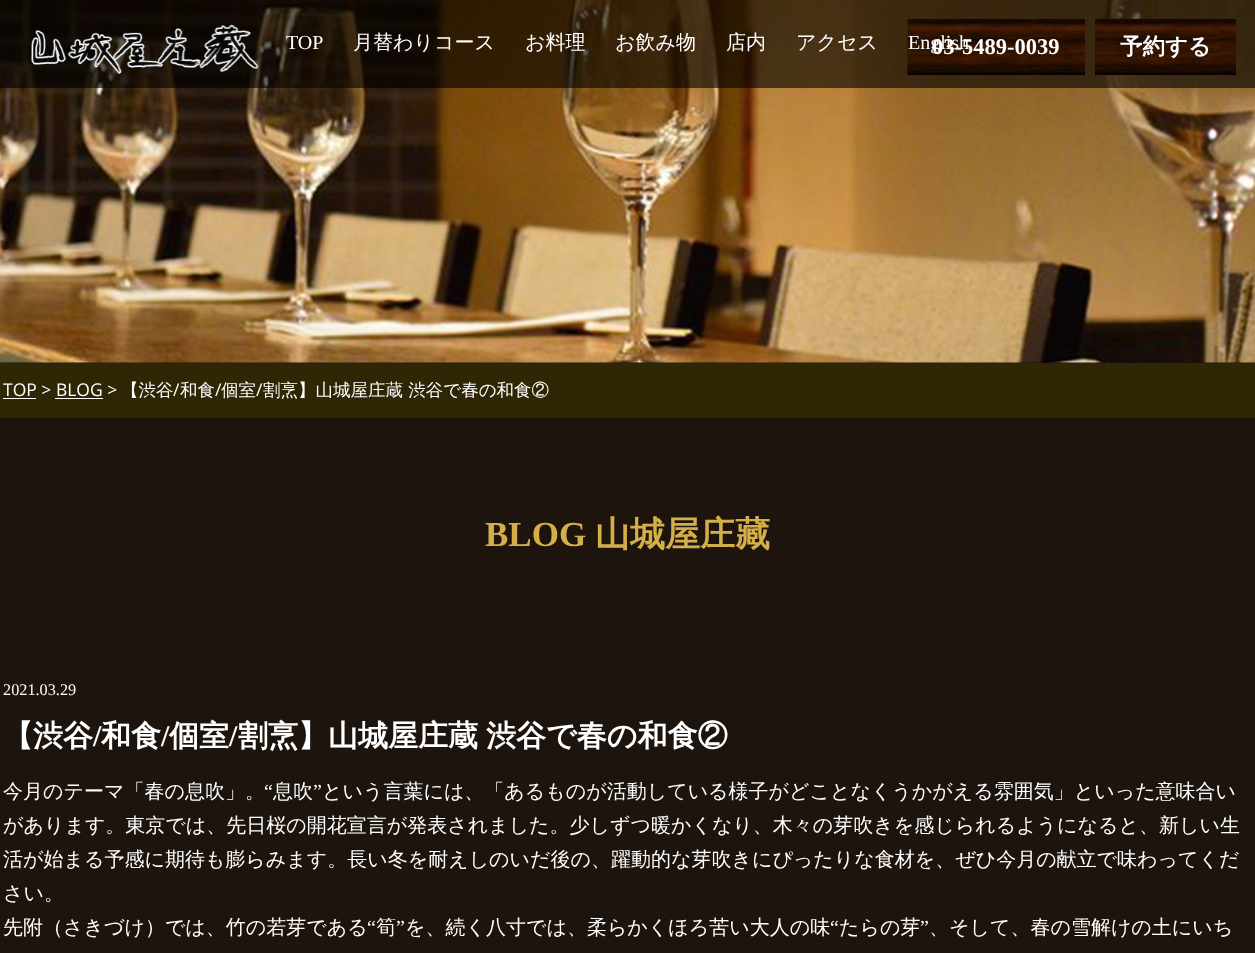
<svg xmlns="http://www.w3.org/2000/svg" width="1255" height="953" viewBox="0 0 1255 953">
  <rect width="100%" height="100%" fill="#1d140d"/>
  <image x="0" y="0" width="1255" height="363" href="img4.png"/>
  <rect x="0" y="0" width="1255" height="88" fill="#000000" fill-opacity="0.6"/>
  <image x="31" y="24" width="228" height="50" href="img1.png"/>
  <text x="286" y="49" font-family="Liberation Serif" font-size="20" fill="#ffffff">TOP</text>
  <text x="353" y="49" font-family="WenQuanYi Zen Hei" font-size="20" font-weight="500" fill="#ffffff">月替わりコース</text>
  <text x="525" y="49" font-family="WenQuanYi Zen Hei" font-size="20" font-weight="500" fill="#ffffff">お料理</text>
  <text x="615" y="49" font-family="WenQuanYi Zen Hei" font-size="20" font-weight="500" fill="#ffffff">お飲み物</text>
  <text x="726" y="49" font-family="WenQuanYi Zen Hei" font-size="20" font-weight="500" fill="#ffffff">店内</text>
  <text x="796" y="49" font-family="WenQuanYi Zen Hei" font-size="20" font-weight="500" fill="#ffffff">アクセス</text>
  <image x="907" y="19" width="178" height="56" href="img2.png"/>
  <text x="932" y="54" font-family="Liberation Serif" font-size="22.5" font-weight="bold" fill="#ffffff">03-5489-0039</text>
  <text x="908" y="49" font-family="Liberation Serif" font-size="20" fill="#ffffff">English</text>
  <image x="1095" y="18" width="141" height="57" href="img3.png"/>
  <text x="1120" y="54" font-family="WenQuanYi Zen Hei" font-size="22.5" font-weight="bold" fill="#ffffff">予約する</text>
  <rect x="0" y="363" width="1255" height="55" fill="#2e2604"/>
  <text x="3" y="396" font-family="Open Sans" font-size="17.5" fill="#ffffff">TOP &gt; BLOG &gt;</text>
  <rect x="3" y="398" width="33" height="1" fill="#ffffff"/>
  <text x="121" y="396" font-family="WenQuanYi Zen Hei" font-size="17.5" font-weight="500" fill="#ffffff">【渋谷</text>
  <text x="173" y="396" font-family="Open Sans" font-size="17.5" fill="#ffffff">/</text>
  <text x="180" y="396" font-family="WenQuanYi Zen Hei" font-size="17.5" font-weight="500" fill="#ffffff">和食</text>
  <text x="215" y="396" font-family="Open Sans" font-size="17.5" fill="#ffffff">/</text>
  <text x="221" y="396" font-family="WenQuanYi Zen Hei" font-size="17.5" font-weight="500" fill="#ffffff">個室</text>
  <text x="256" y="396" font-family="Open Sans" font-size="17.5" fill="#ffffff">/</text>
  <text x="263" y="396" font-family="WenQuanYi Zen Hei" font-size="17.5" font-weight="500" fill="#ffffff">割烹】山城屋庄蔵 渋谷で春の和食②</text>
  <rect x="55" y="398" width="48" height="1" fill="#ffffff"/>
  <text x="485" y="546" font-family="Liberation Serif" font-size="35" font-weight="bold" fill="#d4af48">BLOG</text>
  <text x="595" y="546" font-family="WenQuanYi Zen Hei" font-size="35" font-weight="bold" fill="#d4af48">山城屋庄藏</text>
  <text x="3" y="695" font-family="Liberation Serif" font-size="16.25" fill="#ffffff">2021.03.29</text>
  <text x="3" y="746" font-family="WenQuanYi Zen Hei" font-size="30" font-weight="bold" fill="#ffffff">【渋谷</text>
  <text x="93" y="746" font-family="Liberation Serif" font-size="30" font-weight="bold" fill="#ffffff">/</text>
  <text x="101" y="746" font-family="WenQuanYi Zen Hei" font-size="30" font-weight="bold" fill="#ffffff">和食</text>
  <text x="161" y="746" font-family="Liberation Serif" font-size="30" font-weight="bold" fill="#ffffff">/</text>
  <text x="169" y="746" font-family="WenQuanYi Zen Hei" font-size="30" font-weight="bold" fill="#ffffff">個室</text>
  <text x="229" y="746" font-family="Liberation Serif" font-size="30" font-weight="bold" fill="#ffffff">/</text>
  <text x="238" y="746" word-spacing="-1" font-family="WenQuanYi Zen Hei" font-size="30" font-weight="bold" fill="#ffffff">割烹】山城屋庄蔵 渋谷で春の和食②</text>
  <text x="3" y="798" font-family="WenQuanYi Zen Hei" font-size="20" font-weight="500" fill="#ffffff">今月のテーマ「春の息吹」。</text>
  <text x="264" y="798" font-family="Liberation Serif" font-size="20" fill="#ffffff">“</text>
  <text x="273" y="798" font-family="WenQuanYi Zen Hei" font-size="20" font-weight="500" fill="#ffffff">息吹</text>
  <text x="313" y="798" font-family="Liberation Serif" font-size="20" fill="#ffffff">”</text>
  <text x="322" y="798" font-family="WenQuanYi Zen Hei" font-size="20" font-weight="500" fill="#ffffff">という言葉には、「あるものが活動している様子がどことなくうかがえる雰囲気」といった意味合い</text>
  <text x="3" y="832" font-family="WenQuanYi Zen Hei" font-size="20" font-weight="500" fill="#ffffff">があります。東京では、先日桜の開花宣言が発表されました。少しずつ暖かくなり、木々の芽吹きを感じられるようになると、新しい生</text>
  <text x="3" y="866" font-family="WenQuanYi Zen Hei" font-size="20" font-weight="500" fill="#ffffff">活が始まる予感に期待も膨らみます。長い冬を耐えしのいだ後の、躍動的な芽吹きにぴったりな食材を、ぜひ今月の献立で味わってくだ</text>
  <text x="3" y="900" font-family="WenQuanYi Zen Hei" font-size="20" font-weight="500" fill="#ffffff">さい。</text>
  <text x="3" y="934" font-family="WenQuanYi Zen Hei" font-size="20" font-weight="500" fill="#ffffff">先附（さきづけ）では、竹の若芽である</text>
  <text x="367" y="934" font-family="Liberation Serif" font-size="20" fill="#ffffff">“</text>
  <text x="376" y="934" font-family="WenQuanYi Zen Hei" font-size="20" font-weight="500" fill="#ffffff">筍</text>
  <text x="396" y="934" font-family="Liberation Serif" font-size="20" fill="#ffffff">”</text>
  <text x="405" y="934" font-family="WenQuanYi Zen Hei" font-size="20" font-weight="500" fill="#ffffff">を、続く八寸では、柔らかくほろ苦い大人の味</text>
  <text x="830" y="934" font-family="Liberation Serif" font-size="20" fill="#ffffff">“</text>
  <text x="839" y="934" font-family="WenQuanYi Zen Hei" font-size="20" font-weight="500" fill="#ffffff">たらの芽</text>
  <text x="920" y="934" font-family="Liberation Serif" font-size="20" fill="#ffffff">”</text>
  <text x="929" y="934" font-family="WenQuanYi Zen Hei" font-size="20" font-weight="500" fill="#ffffff">、そして、春の雪解けの土にいち</text>
</svg>
